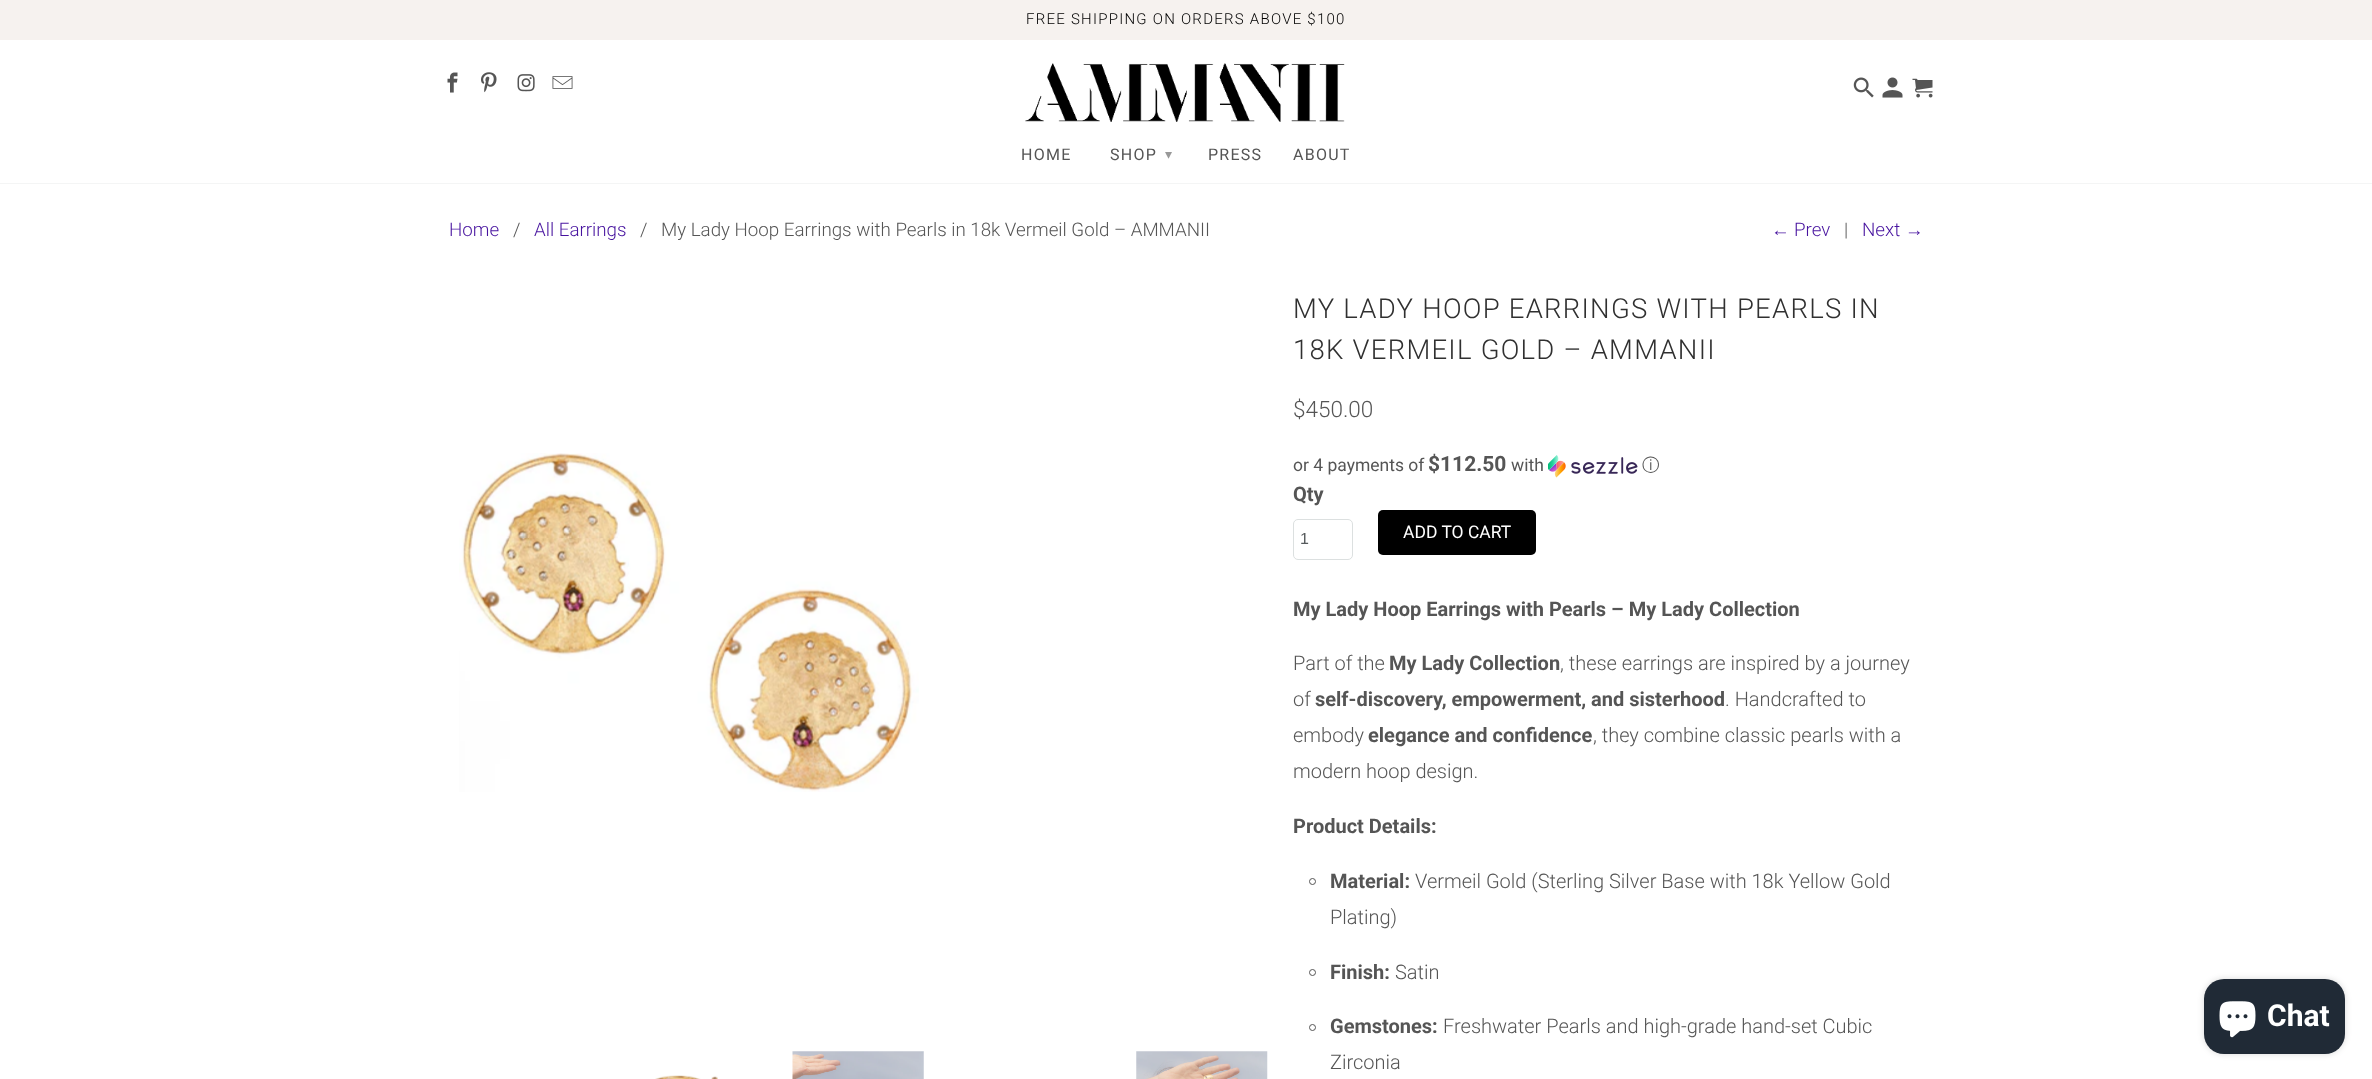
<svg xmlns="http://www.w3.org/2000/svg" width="2372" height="1079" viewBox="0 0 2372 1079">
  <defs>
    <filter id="blur1" x="-50%" y="-200%" width="200%" height="500%"><feGaussianBlur stdDeviation="3"/></filter>
  </defs>
  <rect width="100%" height="100%" fill="#ffffff"/>
  <rect x="0" y="183" width="2372" height="1" fill="#f4f5f5"/>
  <rect x="0" y="0" width="2372" height="40" fill="#f6f2ef"/>
  <text x="1026" y="24" font-family="Roboto" font-size="15" font-weight="300" letter-spacing="1.25" fill="#000000">FREE SHIPPING ON ORDERS ABOVE $100</text>
  <image x="447" y="72" width="11" height="21" href="img1.png"/>
  <image x="481" y="72" width="16" height="21" href="img2.png"/>
  <image x="517" y="74" width="18" height="18" href="img3.png"/>
  <image x="552" y="76" width="21" height="13" href="img4.png"/>
  <image x="1025" y="63" width="320" height="59" href="img5.png"/>
  <image x="1853" y="77" width="21" height="21" href="img6.png"/>
  <image x="1882" y="77" width="21" height="21" href="img7.png"/>
  <image x="1912" y="78" width="21" height="20" href="img8.png"/>
  <text x="1021" y="160" font-family="Roboto" font-size="16" letter-spacing="1.25" fill="#555555">HOME</text>
  <text x="1110" y="160" font-family="Roboto" font-size="16" letter-spacing="1.25" fill="#555555">SHOP</text>
  <text x="1165" y="159" font-family="DejaVu Sans" font-size="14" letter-spacing="1.25" fill="#999999">▾</text>
  <text x="1208" y="160" font-family="Roboto" font-size="16" letter-spacing="1.25" fill="#555555">PRESS</text>
  <text x="1293" y="160" font-family="Roboto" font-size="16" letter-spacing="1.25" fill="#555555">ABOUT</text>
  <text x="449" y="236" font-family="Roboto" font-size="18.75" font-weight="300" fill="#47139f">Home</text>
  <text x="513" y="236" font-family="Roboto" font-size="18.75" font-weight="300" fill="#555555">/</text>
  <text x="534" y="236" font-family="Roboto" font-size="18.75" font-weight="300" fill="#47139f">All Earrings</text>
  <text x="640" y="236" font-family="Roboto" font-size="18.75" font-weight="300" fill="#555555">/</text>
  <text x="661" y="236" font-family="Roboto" font-size="18.75" font-weight="300" fill="#555555">My Lady Hoop Earrings with Pearls in 18k Vermeil Gold – AMMANII</text>
  <text x="1771" y="236" font-family="Liberation Serif" font-size="18.75" fill="#47139f">←</text>
  <text x="1794" y="236" font-family="Roboto" font-size="18.75" font-weight="300" fill="#47139f">Prev</text>
  <text x="1844" y="236" font-family="Roboto" font-size="18.75" font-weight="300" fill="#555555">|</text>
  <text x="1862" y="236" font-family="Roboto" font-size="18.75" font-weight="300" fill="#47139f">Next</text>
  <text x="1905" y="236" font-family="Liberation Serif" font-size="18.75" fill="#47139f">→</text>
  <image x="459" y="453" width="460" height="339" href="img9.png"/>
  <image x="655" y="1075" width="63" height="4" href="img10.png"/>
  <image x="792" y="1051" width="132" height="28" href="img11.png"/>
  <image x="1136" y="1051" width="132" height="28" href="img12.png"/>
  <text x="1293" y="318" font-family="Roboto" font-size="27.5" font-weight="300" letter-spacing="1.25" fill="#303030">MY LADY HOOP EARRINGS WITH PEARLS IN</text>
  <text x="1293" y="359" font-family="Roboto" font-size="27.5" font-weight="300" letter-spacing="1.25" fill="#303030">18K VERMEIL GOLD – AMMANII</text>
  <text x="1293" y="417" font-family="Roboto" font-size="22.5" font-weight="300" fill="#555555">$450.00</text>
  <text x="1293" y="471" font-family="Roboto" font-size="17.5" fill="#555555">or 4 payments of</text>
  <text x="1428" y="471" font-family="Roboto" font-size="21" font-weight="bold" fill="#555555">$112.50</text>
  <text x="1511" y="471" font-family="Roboto" font-size="17.5" fill="#555555">with</text>
  <image x="1548" y="455" width="90" height="23" href="img13.png"/>
  <text x="1642" y="471" font-family="WenQuanYi Zen Hei" font-size="17.5" font-weight="500" fill="#555555">ⓘ</text>
  <text x="1293" y="501" font-family="Roboto" font-size="20" font-weight="bold" fill="#555555">Qty</text>
  <rect x="1293.5" y="519.5" width="59" height="40" rx="4.5" fill="none" stroke="#dce0e0"/>
  <text x="1300" y="544" font-family="Liberation Sans" font-size="16" fill="#565a5c">1</text>
  <rect x="1378" y="510" width="158" height="45" rx="5" fill="#000000"/>
  <path d="M1378 546V550C1378 553 1380 555 1383 555H1531C1534 555 1536 553 1536 550V546C1536 549 1534 551 1531 551H1382C1380 551 1378 549 1378 546Z" fill="#000000" fill-opacity="0.1"/>
  <text x="1403" y="538" font-family="Roboto" font-size="17.5" fill="#ffffff">ADD TO CART</text>
  <text x="1293" y="616" font-family="Roboto" font-size="20" font-weight="bold" fill="#555555">My Lady Hoop Earrings with Pearls – My Lady Collection</text>
  <text x="1293" y="670" font-family="Roboto" font-size="20" font-weight="300" fill="#555555">Part of the</text>
  <text x="1389" y="670" font-family="Roboto" font-size="20" font-weight="bold" fill="#555555">My Lady Collection</text>
  <text x="1560" y="670" font-family="Roboto" font-size="20" font-weight="300" fill="#555555">, these earrings are inspired by a journey</text>
  <text x="1293" y="706" font-family="Roboto" font-size="20" font-weight="300" fill="#555555">of</text>
  <text x="1315" y="706" font-family="Roboto" font-size="20" font-weight="bold" fill="#555555">self-discovery, empowerment, and sisterhood</text>
  <text x="1725" y="706" font-family="Roboto" font-size="20" font-weight="300" fill="#555555">. Handcrafted to</text>
  <text x="1293" y="742" font-family="Roboto" font-size="20" font-weight="300" fill="#555555">embody</text>
  <text x="1368" y="742" font-family="Roboto" font-size="20" font-weight="bold" fill="#555555">elegance and confidence</text>
  <text x="1593" y="742" font-family="Roboto" font-size="20" font-weight="300" fill="#555555">, they combine classic pearls with a</text>
  <text x="1293" y="778" font-family="Roboto" font-size="20" font-weight="300" fill="#555555">modern hoop design.</text>
  <text x="1293" y="833" font-family="Roboto" font-size="20" font-weight="bold" fill="#555555">Product Details:</text>
  <circle cx="1312.5" cy="881.5" r="3" fill="none" stroke="#555555"/>
  <text x="1330" y="888" font-family="Roboto" font-size="20" font-weight="bold" fill="#555555">Material:</text>
  <text x="1415" y="888" font-family="Roboto" font-size="20" font-weight="300" fill="#555555">Vermeil Gold (Sterling Silver Base with 18k Yellow Gold</text>
  <text x="1330" y="924" font-family="Roboto" font-size="20" font-weight="300" fill="#555555">Plating)</text>
  <circle cx="1312.5" cy="972.5" r="3" fill="none" stroke="#555555"/>
  <text x="1330" y="979" font-family="Roboto" font-size="20" font-weight="bold" fill="#555555">Finish:</text>
  <text x="1395" y="979" font-family="Roboto" font-size="20" font-weight="300" fill="#555555">Satin</text>
  <circle cx="1312.5" cy="1027.5" r="3" fill="none" stroke="#555555"/>
  <text x="1330" y="1033" font-family="Roboto" font-size="20" font-weight="bold" fill="#555555">Gemstones:</text>
  <text x="1443" y="1033" font-family="Roboto" font-size="20" font-weight="300" fill="#555555">Freshwater Pearls and high-grade hand-set Cubic</text>
  <text x="1330" y="1069" font-family="Roboto" font-size="20" font-weight="300" fill="#555555">Zirconia</text>
  <rect x="2204" y="979" width="141" height="75" rx="20" fill="#000000" fill-opacity="0.15" filter="url(#blur1)"/>
  <rect x="2204" y="979" width="141" height="75" rx="20" fill="#202a36"/>
  <image x="2219" y="1001" width="37" height="37" href="img14.png"/>
  <text x="2267" y="1026" font-family="Roboto" font-size="30" font-weight="bold" fill="#ffffff">Chat</text>
</svg>
